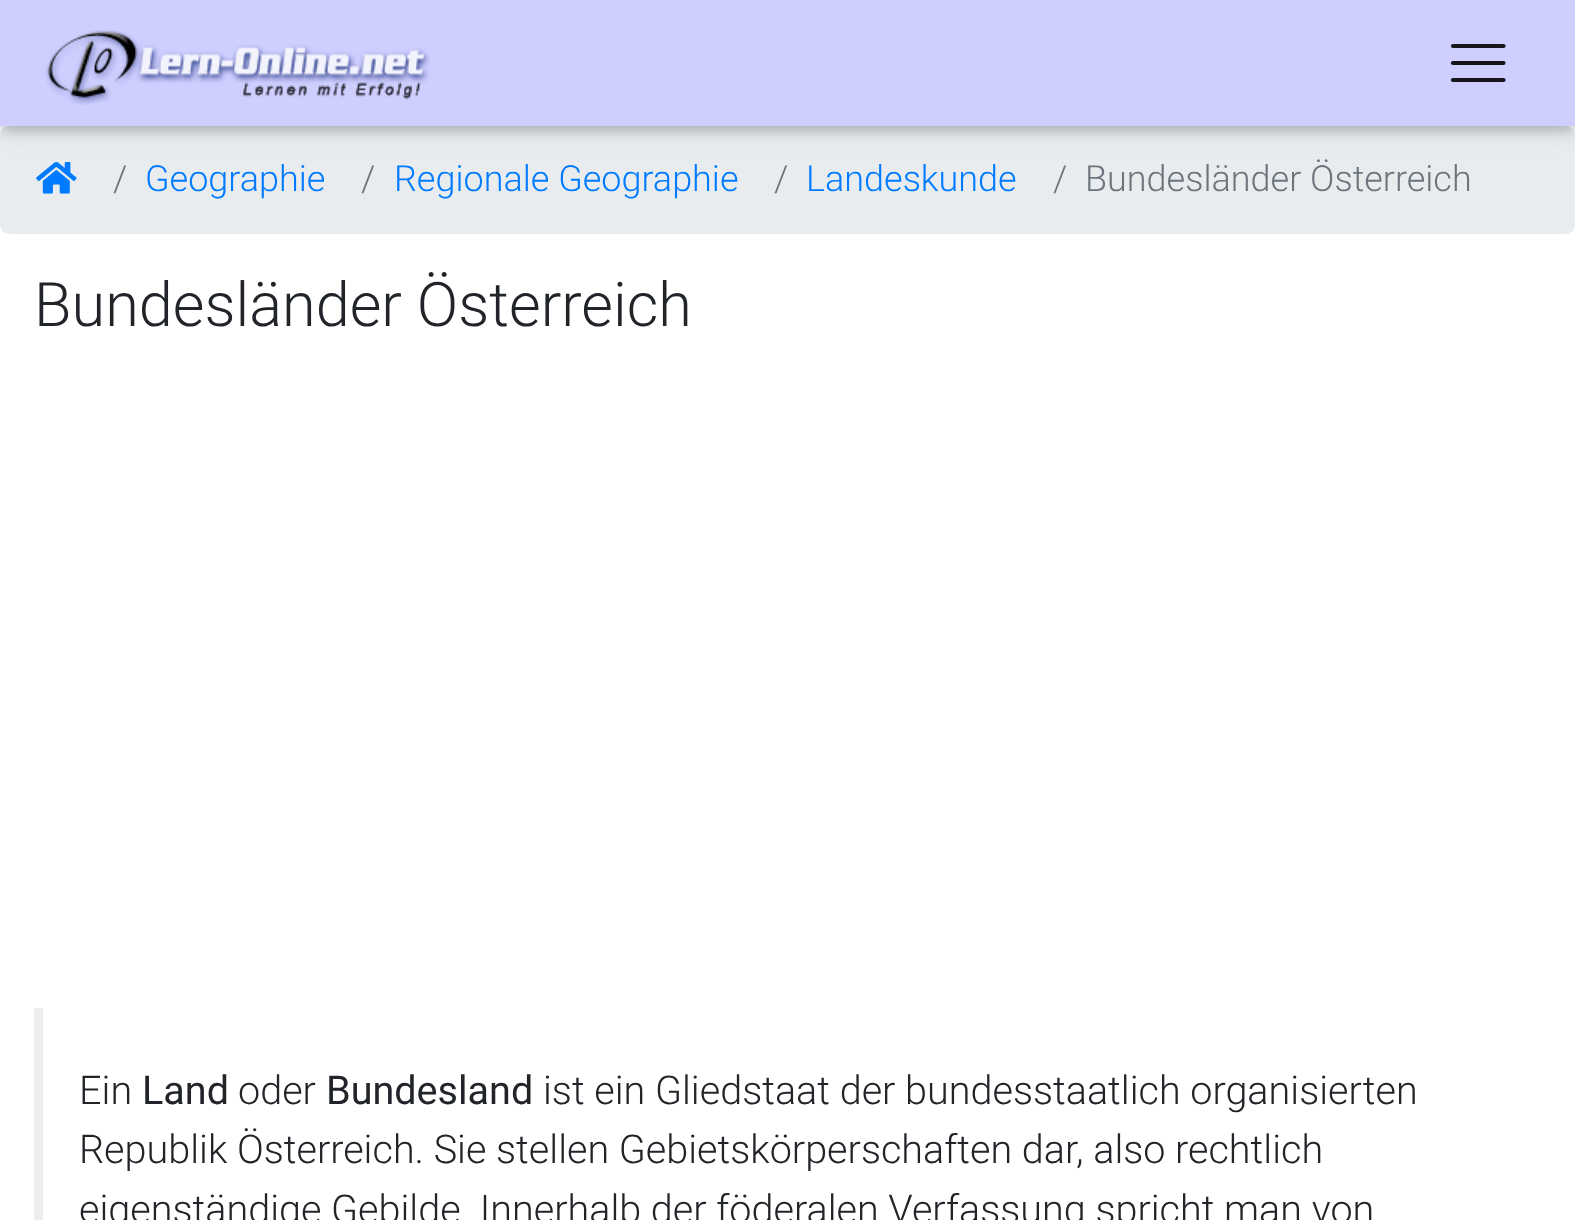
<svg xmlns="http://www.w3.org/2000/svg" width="1575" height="1220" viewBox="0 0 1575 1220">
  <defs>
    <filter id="blur1" x="-50%" y="-200%" width="200%" height="500%"><feGaussianBlur stdDeviation="11"/></filter>
    <filter id="blur2" x="-50%" y="-200%" width="200%" height="500%"><feGaussianBlur stdDeviation="5.5"/></filter>
  </defs>
  <rect width="100%" height="100%" fill="#ffffff"/>
  <rect x="0" y="126" width="1575" height="108" rx="9" fill="#e9ecef"/>
  <image x="36" y="162" width="41" height="32" href="img2.png"/>
  <rect x="0" y="5" width="1575" height="126" fill="#000000" fill-opacity="0.12" filter="url(#blur1)"/>
  <rect x="0" y="5" width="1575" height="126" fill="#000000" fill-opacity="0.16" filter="url(#blur2)"/>
  <rect x="0" y="0" width="1575" height="126" fill="#cecfff"/>
  <image x="45" y="30" width="385" height="75" href="img1.png"/>
  <path d="M1453 46H1503.5M1453 63H1503.5M1453 80H1503.5" fill="none" stroke="#15151a" stroke-width="4.2" stroke-linecap="round"/>
  <text x="113" y="191" font-family="Roboto" font-size="36" font-weight="300" fill="#6c757d">/</text>
  <text x="145" y="191" font-family="Roboto" font-size="36" font-weight="300" fill="#007bff">Geographie</text>
  <text x="361" y="191" font-family="Roboto" font-size="36" font-weight="300" fill="#6c757d">/</text>
  <text x="394" y="191" font-family="Roboto" font-size="36" font-weight="300" fill="#007bff">Regionale Geographie</text>
  <text x="774" y="191" font-family="Roboto" font-size="36" font-weight="300" fill="#6c757d">/</text>
  <text x="806" y="191" font-family="Roboto" font-size="36" font-weight="300" fill="#007bff">Landeskunde</text>
  <text x="1053" y="191" font-family="Roboto" font-size="36" font-weight="300" fill="#6c757d">/</text>
  <text x="1085" y="191" font-family="Roboto" font-size="36" font-weight="300" fill="#6c757d">Bundesländer Österreich</text>
  <text x="34" y="326" font-family="Roboto" font-size="61.25" font-weight="300" fill="#212529">Bundesländer Österreich</text>
  <rect x="34" y="1008" width="9" height="212" fill="#eceeef"/>
  <text x="79" y="1104" font-family="Roboto" font-size="39.6" font-weight="300" fill="#212529">Ein</text>
  <text x="142" y="1104" font-family="Roboto" font-size="39.6" fill="#212529">Land</text>
  <text x="238" y="1104" font-family="Roboto" font-size="39.6" font-weight="300" fill="#212529">oder</text>
  <text x="326" y="1104" font-family="Roboto" font-size="39.6" fill="#212529">Bundesland</text>
  <text x="543" y="1104" font-family="Roboto" font-size="39.6" font-weight="300" fill="#212529">ist ein Gliedstaat der bundesstaatlich organisierten</text>
  <text x="79" y="1163" font-family="Roboto" font-size="39.6" font-weight="300" fill="#212529">Republik Österreich. Sie stellen Gebietskörperschaften dar, also rechtlich</text>
  <text x="79" y="1223" font-family="Roboto" font-size="39.6" font-weight="300" fill="#212529">eigenständige Gebilde. Innerhalb der föderalen Verfassung spricht man von</text>
</svg>
